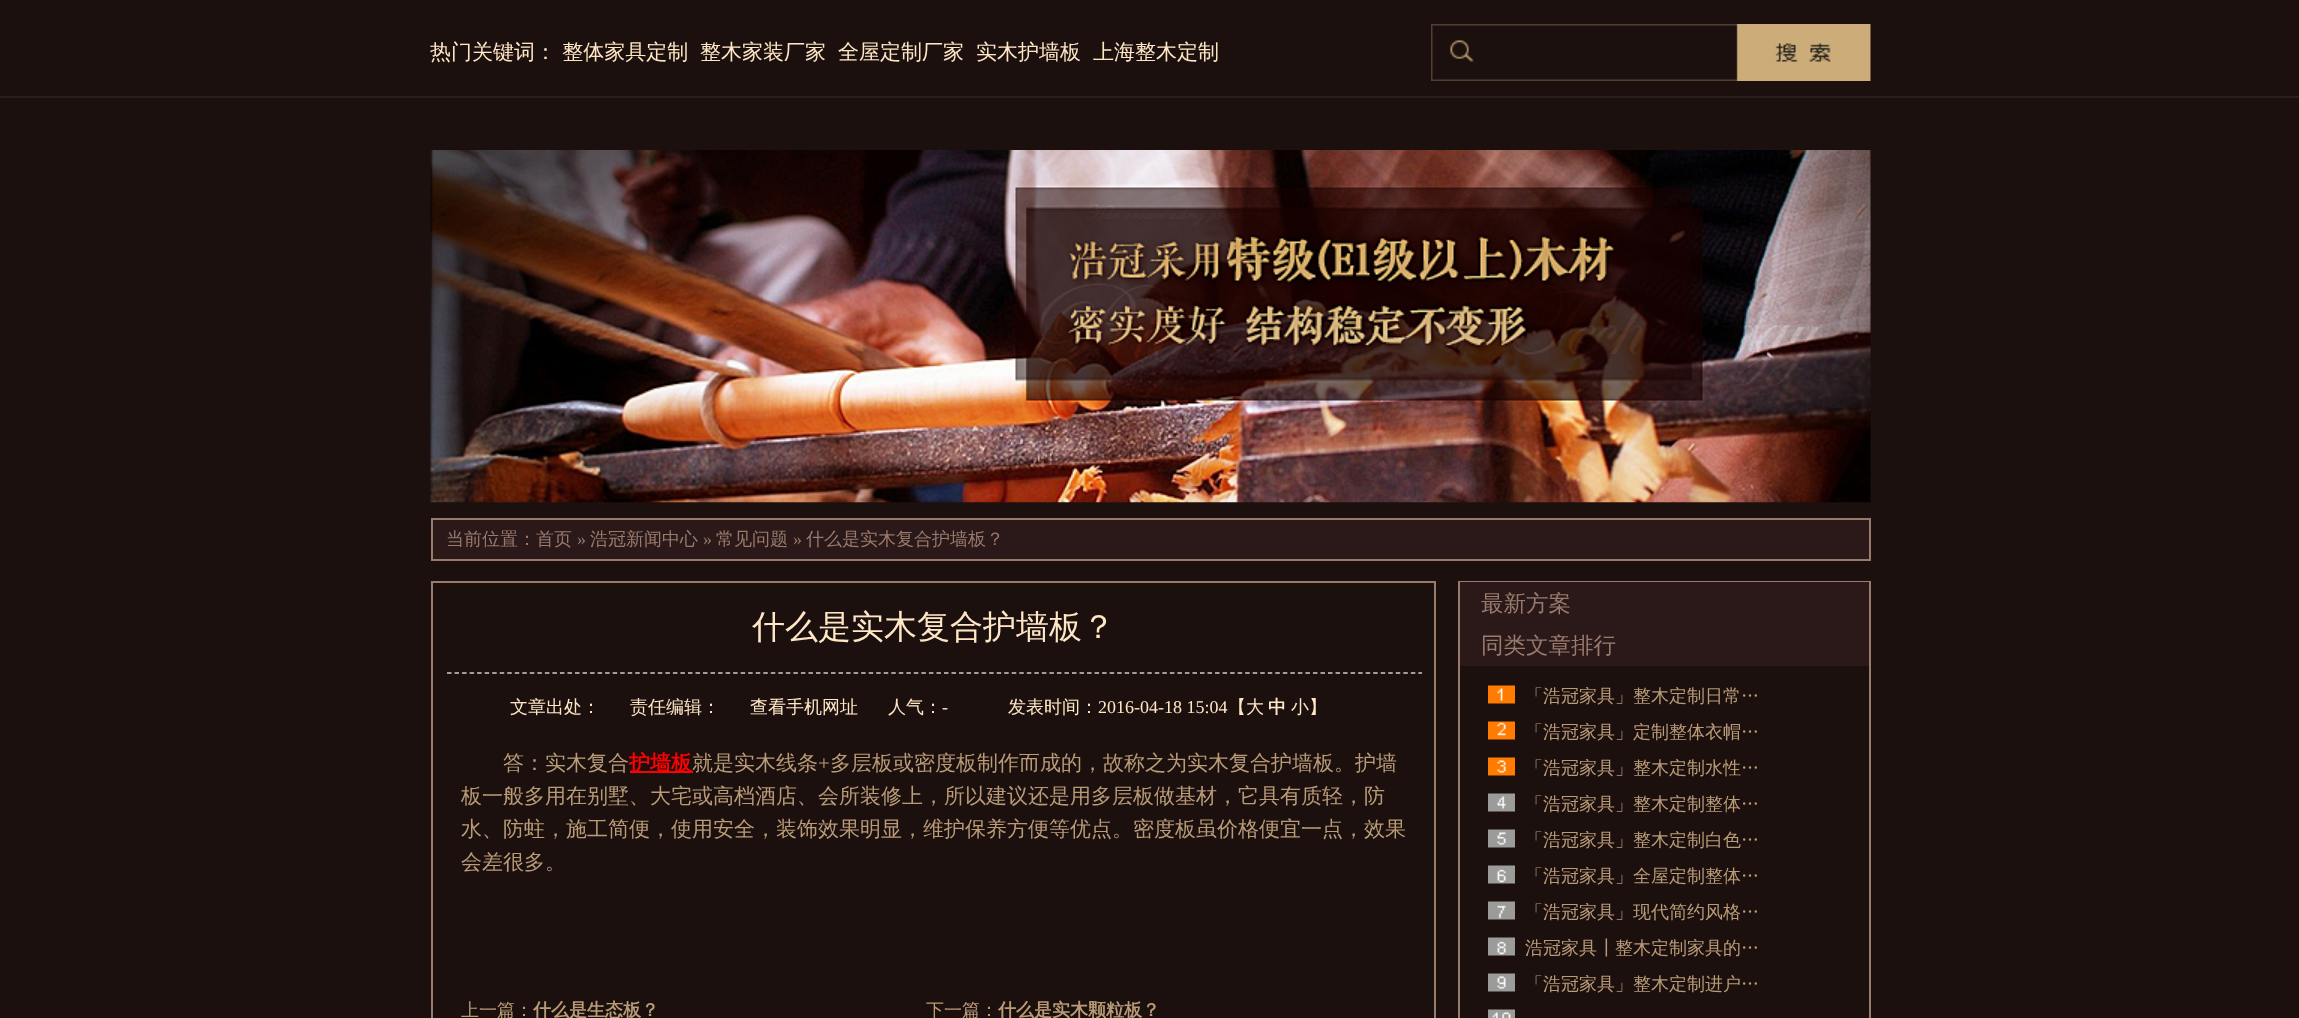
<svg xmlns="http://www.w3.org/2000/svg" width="2299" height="1018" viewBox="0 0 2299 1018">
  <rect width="100%" height="100%" fill="#1c100f"/>
  <rect x="0" y="96" width="2299" height="2" fill="#2b1e1b"/>
  <text x="430" y="59" font-family="WenQuanYi Zen Hei" font-size="21" font-weight="500" fill="#ffe6c5">热门关键词： 整体家具定制</text>
  <text x="700" y="59" font-family="WenQuanYi Zen Hei" font-size="21" font-weight="500" fill="#ffe6c5">整木家装厂家</text>
  <text x="838" y="59" font-family="WenQuanYi Zen Hei" font-size="21" font-weight="500" fill="#ffe6c5">全屋定制厂家</text>
  <text x="976" y="59" font-family="WenQuanYi Zen Hei" font-size="21" font-weight="500" fill="#ffe6c5">实木护墙板</text>
  <text x="1093" y="59" font-family="WenQuanYi Zen Hei" font-size="21" font-weight="500" fill="#ffe6c5">上海整木定制</text>
  <image x="1431" y="24" width="440" height="57" href="img1.png"/>
  <image x="430" y="150" width="1441" height="353" href="img2.png"/>
  <rect x="432" y="519" width="1438" height="41" fill="#2b1919" stroke="#997b6e" stroke-width="2"/>
  <text x="446" y="545" font-family="WenQuanYi Zen Hei" font-size="18" font-weight="500" fill="#997b6e">当前位置：首页</text>
  <text x="577" y="545" font-family="Liberation Serif" font-size="18" fill="#997b6e">»</text>
  <text x="590" y="545" font-family="WenQuanYi Zen Hei" font-size="18" font-weight="500" fill="#997b6e">浩冠新闻中心</text>
  <text x="703" y="545" font-family="Liberation Serif" font-size="18" fill="#997b6e">»</text>
  <text x="716" y="545" font-family="WenQuanYi Zen Hei" font-size="18" font-weight="500" fill="#997b6e">常见问题</text>
  <text x="793" y="545" font-family="Liberation Serif" font-size="18" fill="#997b6e">»</text>
  <text x="806" y="545" font-family="WenQuanYi Zen Hei" font-size="18" font-weight="500" fill="#997b6e">什么是实木复合护墙板？</text>
  <rect x="431" y="581" width="1005" height="2" fill="#997b6e"/>
  <rect x="1434" y="582" width="2" height="436" fill="#997b6e"/>
  <rect x="431" y="582" width="2" height="436" fill="#997b6e"/>
  <path d="M447 673H1422" fill="none" stroke="#cccccc" stroke-width="1.5" stroke-dasharray="4.5 3.03"/>
  <text x="752" y="638" font-family="WenQuanYi Zen Hei" font-size="33" font-weight="500" fill="#ffe6c5">什么是实木复合护墙板？</text>
  <text x="510" y="713" font-family="WenQuanYi Zen Hei" font-size="18" font-weight="500" fill="#ffe6c5">文章出处：</text>
  <text x="630" y="713" font-family="WenQuanYi Zen Hei" font-size="18" font-weight="500" fill="#ffe6c5">责任编辑：</text>
  <text x="750" y="713" font-family="WenQuanYi Zen Hei" font-size="18" font-weight="500" fill="#ffe6c5">查看手机网址</text>
  <text x="888" y="713" font-family="WenQuanYi Zen Hei" font-size="18" font-weight="500" fill="#ffe6c5">人气：</text>
  <text x="942" y="713" font-family="Liberation Serif" font-size="18" fill="#ffe6c5">-</text>
  <text x="1008" y="713" font-family="WenQuanYi Zen Hei" font-size="18" font-weight="500" fill="#ffe6c5">发表时间：</text>
  <text x="1098" y="713" font-family="Liberation Serif" font-size="18" fill="#ffe6c5">2016-04-18 15:04</text>
  <text x="1228" y="713" font-family="WenQuanYi Zen Hei" font-size="18" font-weight="500" fill="#ffe6c5">【大</text>
  <text x="1268" y="713" font-family="WenQuanYi Zen Hei" font-size="18" font-weight="bold" fill="#ffe6c5">中</text>
  <text x="1291" y="713" font-family="WenQuanYi Zen Hei" font-size="18" font-weight="500" fill="#ffe6c5">小】</text>
  <text x="503" y="770" font-family="WenQuanYi Zen Hei" font-size="21" font-weight="500" fill="#b99b77">答：实木复合</text>
  <rect x="630" y="771" width="63" height="2" fill="#ff0000"/>
  <text x="629" y="770" font-family="WenQuanYi Zen Hei" font-size="21" font-weight="bold" fill="#ff0000">护墙板</text>
  <text x="692" y="770" font-family="WenQuanYi Zen Hei" font-size="21" font-weight="500" fill="#b99b77">就是实木线条</text>
  <text x="818" y="770" font-family="Liberation Serif" font-size="21" fill="#b99b77">+</text>
  <text x="830" y="770" font-family="WenQuanYi Zen Hei" font-size="21" font-weight="500" fill="#b99b77">多层板或密度板制作而成的，故称之为实木复合护墙板。护墙</text>
  <text x="461" y="803" font-family="WenQuanYi Zen Hei" font-size="21" font-weight="500" fill="#b99b77">板一般多用在别墅、大宅或高档酒店、会所装修上，所以建议还是用多层板做基材，它具有质轻，防</text>
  <text x="461" y="836" font-family="WenQuanYi Zen Hei" font-size="21" font-weight="500" fill="#b99b77">水、防蛀，施工简便，使用安全，装饰效果明显，维护保养方便等优点。密度板虽价格便宜一点，效果</text>
  <text x="461" y="869" font-family="WenQuanYi Zen Hei" font-size="21" font-weight="500" fill="#b99b77">会差很多。</text>
  <text x="461" y="1016" font-family="WenQuanYi Zen Hei" font-size="18" font-weight="500" fill="#b99b77">上一篇：</text>
  <text x="533" y="1016" font-family="WenQuanYi Zen Hei" font-size="18" font-weight="bold" fill="#b99b77">什么是生态板？</text>
  <text x="926" y="1016" font-family="WenQuanYi Zen Hei" font-size="18" font-weight="500" fill="#b99b77">下一篇：</text>
  <text x="998" y="1016" font-family="WenQuanYi Zen Hei" font-size="18" font-weight="bold" fill="#b99b77">什么是实木颗粒板？</text>
  <rect x="1458" y="581" width="413" height="1" fill="#997b6e"/>
  <rect x="1869" y="582" width="2" height="436" fill="#997b6e"/>
  <rect x="1458" y="582" width="2" height="436" fill="#997b6e"/>
  <rect x="1460" y="582" width="409" height="84" fill="#2b1919"/>
  <text x="1481" y="611" font-family="WenQuanYi Zen Hei" font-size="22.5" font-weight="500" fill="#997b6e">最新方案</text>
  <text x="1481" y="653" font-family="WenQuanYi Zen Hei" font-size="22.5" font-weight="500" fill="#997b6e">同类文章排行</text>
  <image x="1488" y="685" width="27" height="333" href="img3.png"/>
  <text x="1525" y="702" font-family="WenQuanYi Zen Hei" font-size="18" font-weight="500" fill="#b99b77">「浩冠家具」整木定制日常…</text>
  <text x="1525" y="738" font-family="WenQuanYi Zen Hei" font-size="18" font-weight="500" fill="#b99b77">「浩冠家具」定制整体衣帽…</text>
  <text x="1525" y="774" font-family="WenQuanYi Zen Hei" font-size="18" font-weight="500" fill="#b99b77">「浩冠家具」整木定制水性…</text>
  <text x="1525" y="810" font-family="WenQuanYi Zen Hei" font-size="18" font-weight="500" fill="#b99b77">「浩冠家具」整木定制整体…</text>
  <text x="1525" y="846" font-family="WenQuanYi Zen Hei" font-size="18" font-weight="500" fill="#b99b77">「浩冠家具」整木定制白色…</text>
  <text x="1525" y="882" font-family="WenQuanYi Zen Hei" font-size="18" font-weight="500" fill="#b99b77">「浩冠家具」全屋定制整体…</text>
  <text x="1525" y="918" font-family="WenQuanYi Zen Hei" font-size="18" font-weight="500" fill="#b99b77">「浩冠家具」现代简约风格…</text>
  <text x="1525" y="954" font-family="WenQuanYi Zen Hei" font-size="18" font-weight="500" fill="#b99b77">浩冠家具┃整木定制家具的…</text>
  <text x="1525" y="990" font-family="WenQuanYi Zen Hei" font-size="18" font-weight="500" fill="#b99b77">「浩冠家具」整木定制进户…</text>
</svg>
